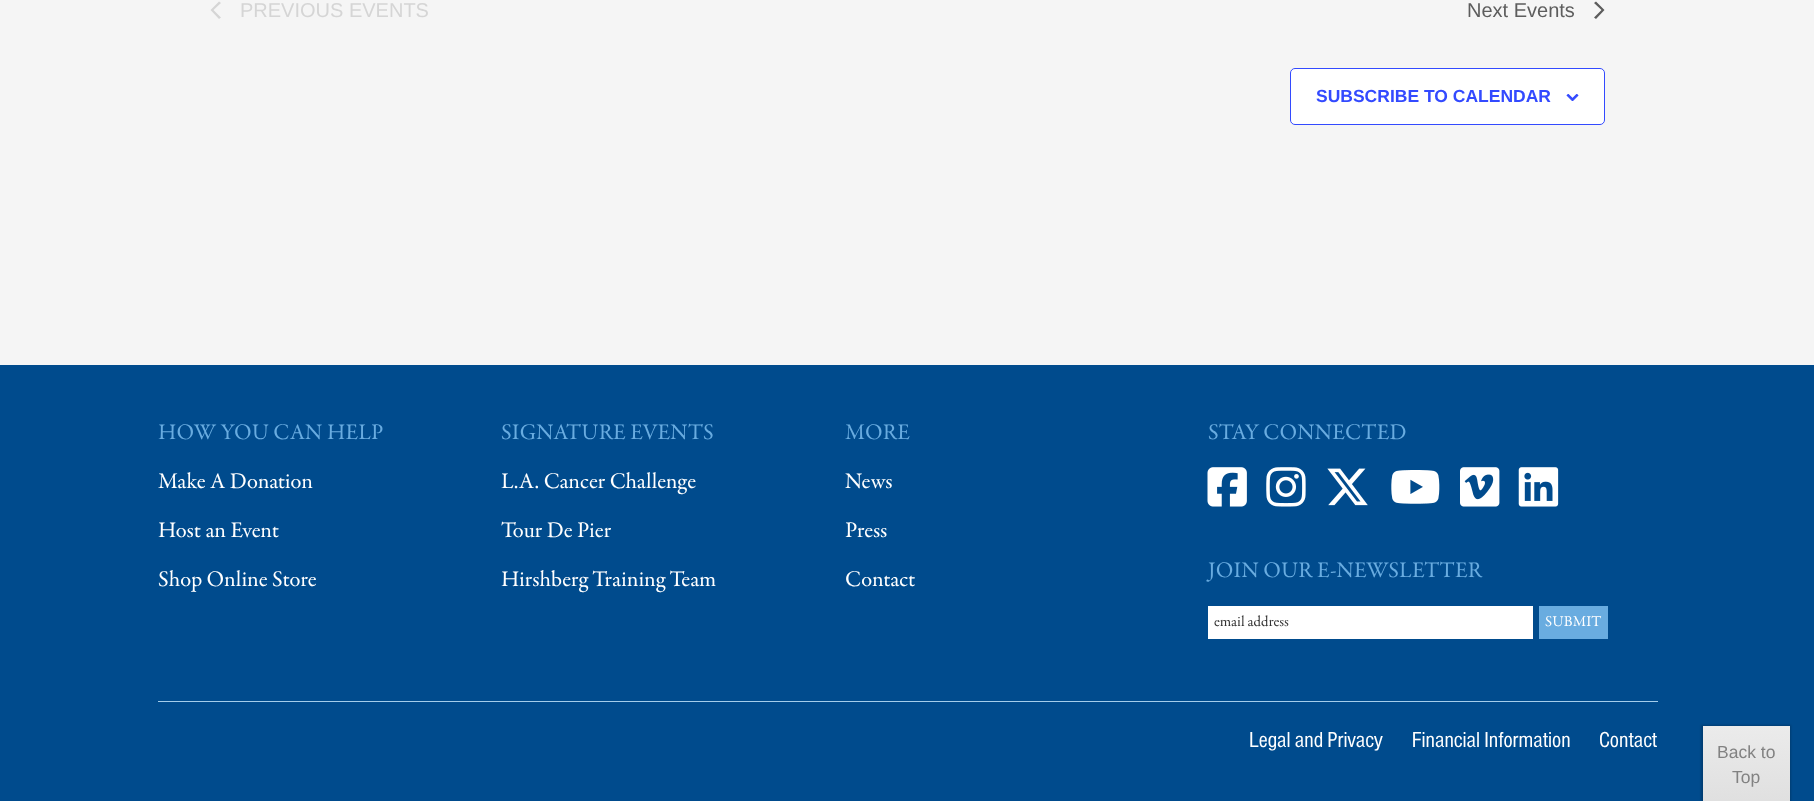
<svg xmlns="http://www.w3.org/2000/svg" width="1814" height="801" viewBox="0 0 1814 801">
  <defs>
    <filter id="blur1" x="-50%" y="-200%" width="200%" height="500%"><feGaussianBlur stdDeviation="1"/></filter>
    <linearGradient id="g1" gradientUnits="userSpaceOnUse" x1="1746" y1="726" x2="1746" y2="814"><stop offset="0" stop-color="#ebebeb"/><stop offset="1" stop-color="#dedede"/></linearGradient>
  </defs>
  <rect width="100%" height="100%" fill="#f5f5f5"/>
  <path d="M221 17.5L219 19L210.5 10L219 1.5L221 3L213.5 10Z" fill="#d5d5d5"/>
  <text x="240" y="17" font-family="Liberation Sans" font-size="20" fill="#d5d5d5">PREVIOUS EVENTS</text>
  <text x="1467" y="17" font-family="Liberation Sans" font-size="20" fill="#5d5d5d">Next Events</text>
  <path d="M1594 3L1596 1.5L1604.5 10L1596 19L1594 17.5L1601.5 10Z" fill="#5d5d5d"/>
  <rect x="1290.5" y="68.5" width="314" height="56" rx="4.5" fill="#ffffff" stroke="#334aff"/>
  <text x="1316" y="102" font-family="Liberation Sans" font-size="17.5" font-weight="bold" fill="#334aff">SUBSCRIBE TO CALENDAR</text>
  <image x="1566" y="94" width="13" height="7" href="img1.png"/>
  <rect x="0" y="365" width="1814" height="436" fill="#004b8d"/>
  <text x="158" y="439" font-family="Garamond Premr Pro" font-size="22.5" fill="#69ace0">HOW YOU CAN HELP</text>
  <text x="158" y="488" font-family="Garamond Premr Pro" font-size="22.5" fill="#ffffff">Make A Donation</text>
  <text x="158" y="537" font-family="Garamond Premr Pro" font-size="22.5" fill="#ffffff">Host an Event</text>
  <text x="158" y="586" font-family="Garamond Premr Pro" font-size="22.5" fill="#ffffff">Shop Online Store</text>
  <text x="501" y="439" font-family="Garamond Premr Pro" font-size="22.5" fill="#69ace0">SIGNATURE EVENTS</text>
  <text x="501" y="488" font-family="Garamond Premr Pro" font-size="22.5" fill="#ffffff">L.A. Cancer Challenge</text>
  <text x="501" y="537" font-family="Garamond Premr Pro" font-size="22.5" fill="#ffffff">Tour De Pier</text>
  <text x="501" y="586" font-family="Garamond Premr Pro" font-size="22.5" fill="#ffffff">Hirshberg Training Team</text>
  <text x="845" y="439" font-family="Garamond Premr Pro" font-size="22.5" fill="#69ace0">MORE</text>
  <text x="845" y="488" font-family="Garamond Premr Pro" font-size="22.5" fill="#ffffff">News</text>
  <text x="845" y="537" font-family="Garamond Premr Pro" font-size="22.5" fill="#ffffff">Press</text>
  <text x="845" y="586" font-family="Garamond Premr Pro" font-size="22.5" fill="#ffffff">Contact</text>
  <text x="1208" y="439" font-family="Garamond Premr Pro" font-size="22.5" fill="#69ace0">STAY CONNECTED</text>
  <image x="1207" y="467" width="40" height="40" href="img2.png"/>
  <image x="1266" y="467" width="40" height="40" href="img3.png"/>
  <image x="1327" y="468" width="41" height="38" href="img4.png"/>
  <image x="1391" y="470" width="49" height="34" href="img5.png"/>
  <image x="1460" y="467" width="40" height="40" href="img6.png"/>
  <image x="1518" y="467" width="41" height="40" href="img7.png"/>
  <text x="1208" y="577" font-family="Garamond Premr Pro" font-size="22.5" fill="#69ace0">JOIN OUR E-NEWSLETTER</text>
  <rect x="1208" y="606" width="325" height="33" fill="#ffffff"/>
  <text x="1214" y="626" font-family="Garamond Premr Pro" font-size="15" fill="#333333">email address</text>
  <rect x="1539" y="606" width="69" height="33" fill="#69ace0"/>
  <text x="1545" y="626" font-family="Garamond Premr Pro" font-size="15" fill="#ffffff">SUBMIT</text>
  <rect x="158" y="701" width="1500" height="1" fill="#a4cdeb"/>
  <text x="1249" y="747" font-family="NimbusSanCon" font-size="22.5" fill="#ffffff">Legal and Privacy</text>
  <text x="1412" y="747" font-family="NimbusSanCon" font-size="22.5" fill="#ffffff">Financial Information</text>
  <text x="1599" y="747" font-family="NimbusSanCon" font-size="22.5" fill="#ffffff">Contact</text>
  <rect x="1701" y="725" width="90" height="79" fill="#000000" fill-opacity="0.2" filter="url(#blur1)"/>
  <rect x="1703" y="726" width="87" height="75" fill="url(#g1)"/>
  <text x="1717" y="758" font-family="Liberation Sans" font-size="17.5" fill="#828282">Back to</text>
  <text x="1732" y="783" font-family="Liberation Sans" font-size="17.5" fill="#828282">Top</text>
</svg>
